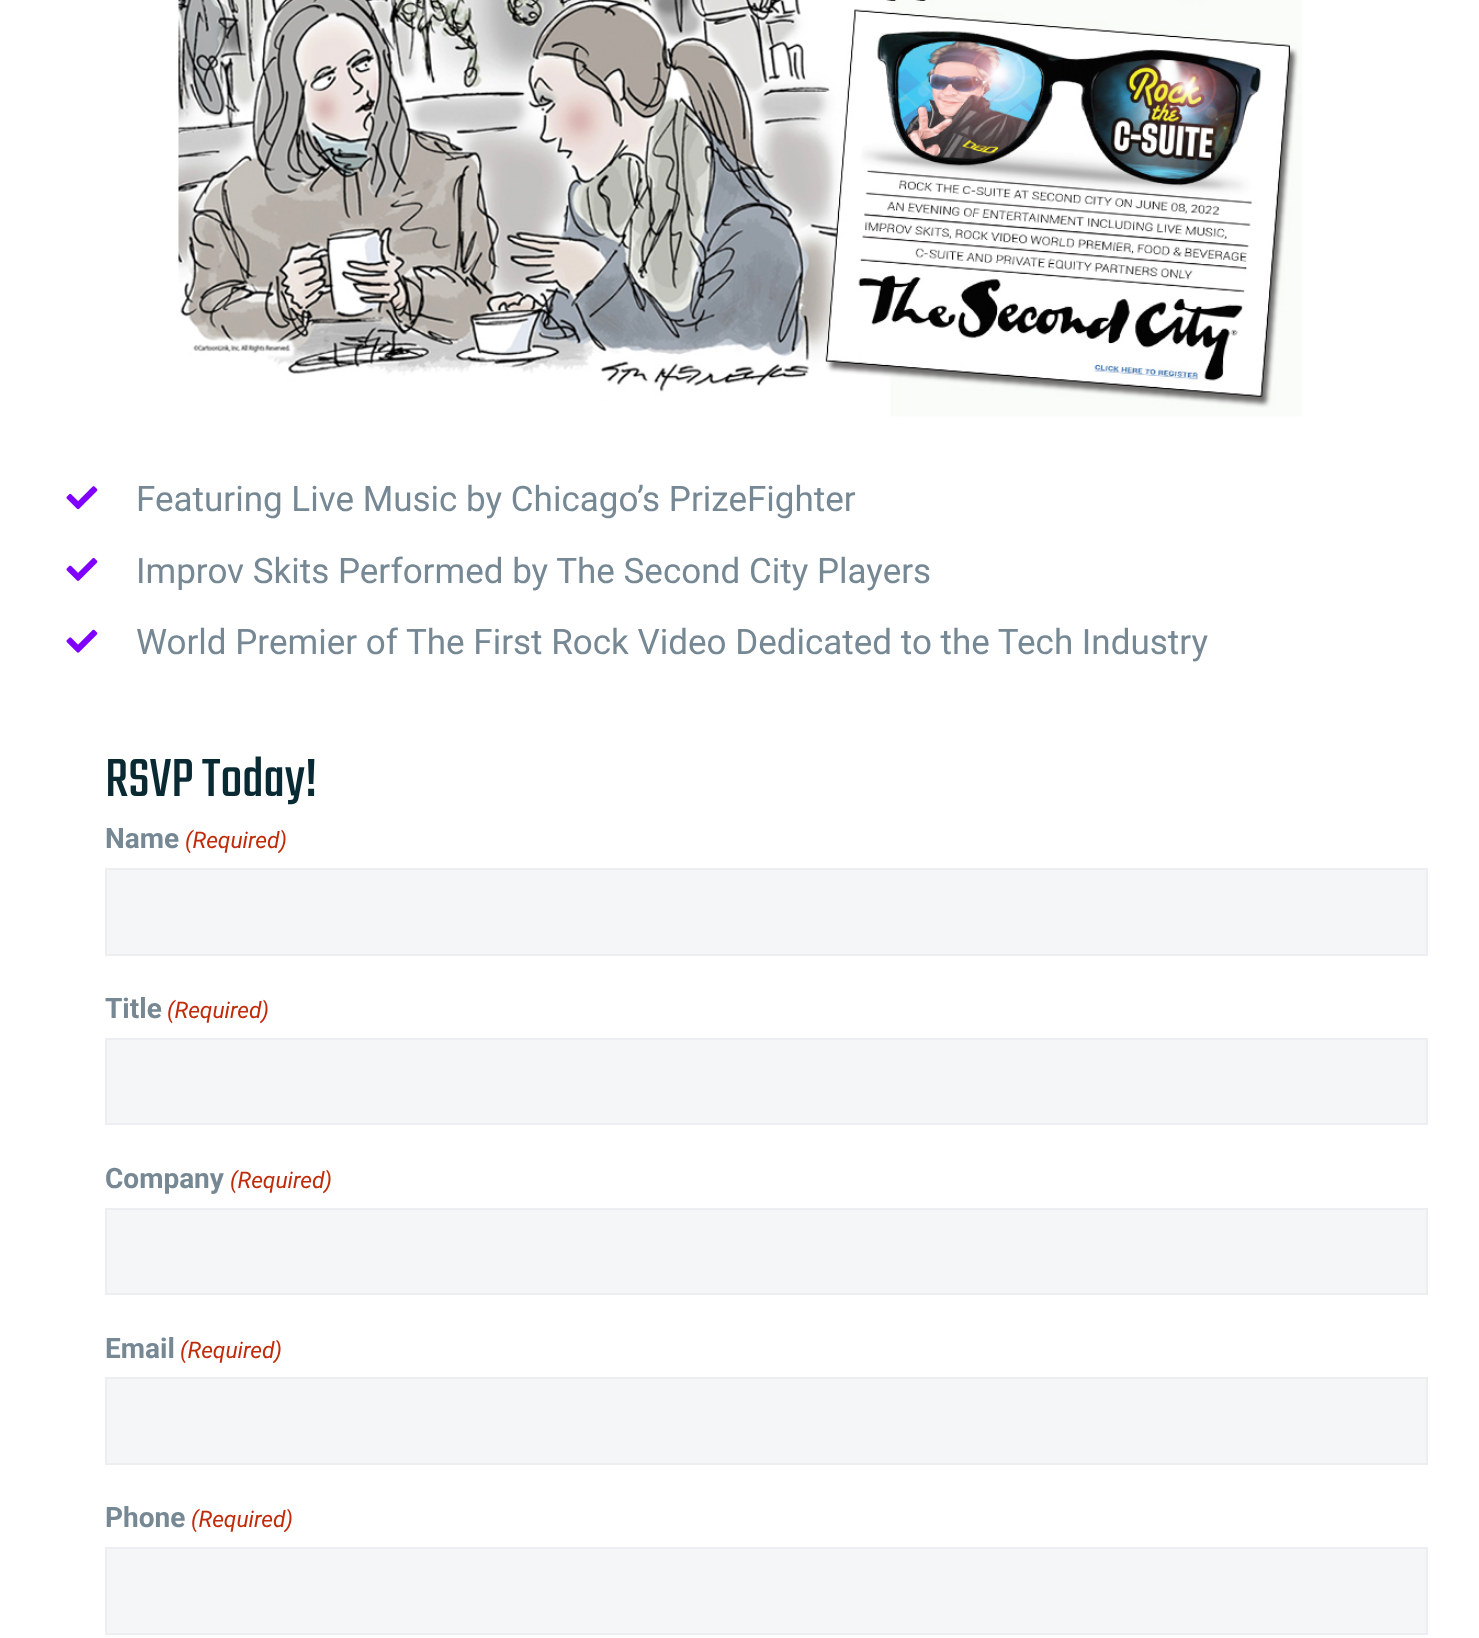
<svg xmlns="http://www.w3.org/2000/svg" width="1479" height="1638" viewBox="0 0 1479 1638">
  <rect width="100%" height="100%" fill="#ffffff"/>
  <image x="178" y="0" width="1124" height="417" href="img1.png"/>
  <image x="66" y="486" width="32" height="24" href="img2.png"/>
  <text x="136" y="511" font-family="Roboto" font-size="35" fill="#768894">Featuring Live Music by Chicago’s PrizeFighter</text>
  <image x="66" y="558" width="32" height="23" href="img3.png"/>
  <text x="136" y="583" font-family="Roboto" font-size="35" fill="#768894">Improv Skits Performed by The Second City Players</text>
  <image x="66" y="629" width="32" height="24" href="img4.png"/>
  <text x="136" y="654" font-family="Roboto" font-size="35" fill="#768894">World Premier of The First Rock Video Dedicated to the Tech Industry</text>
  <text x="105" y="796" font-family="Teko" font-size="59" fill="#092933">RSVP Today!</text>
  <text x="105" y="848" font-family="Roboto" font-size="28" font-weight="bold" fill="#768894">Name</text>
  <text x="185" y="848" font-family="Roboto" font-size="22.75" font-style="italic" fill="#c02b0a">(Required)</text>
  <rect x="106" y="869" width="1321" height="86" fill="#f4f6f7" stroke="#edeef2" stroke-width="2"/>
  <text x="105" y="1018" font-family="Roboto" font-size="28" font-weight="bold" fill="#768894">Title</text>
  <text x="167" y="1018" font-family="Roboto" font-size="22.75" font-style="italic" fill="#c02b0a">(Required)</text>
  <rect x="106" y="1039" width="1321" height="85" fill="#f4f6f7" stroke="#edeef2" stroke-width="2"/>
  <text x="105" y="1188" font-family="Roboto" font-size="28" font-weight="bold" fill="#768894">Company</text>
  <text x="230" y="1188" font-family="Roboto" font-size="22.75" font-style="italic" fill="#c02b0a">(Required)</text>
  <rect x="106" y="1209" width="1321" height="85" fill="#f4f6f7" stroke="#edeef2" stroke-width="2"/>
  <text x="105" y="1358" font-family="Roboto" font-size="28" font-weight="bold" fill="#768894">Email</text>
  <text x="180" y="1358" font-family="Roboto" font-size="22.75" font-style="italic" fill="#c02b0a">(Required)</text>
  <rect x="106" y="1378" width="1321" height="86" fill="#f4f6f7" stroke="#edeef2" stroke-width="2"/>
  <text x="105" y="1527" font-family="Roboto" font-size="28" font-weight="bold" fill="#768894">Phone</text>
  <text x="191" y="1527" font-family="Roboto" font-size="22.75" font-style="italic" fill="#c02b0a">(Required)</text>
  <rect x="106" y="1548" width="1321" height="86" fill="#f4f6f7" stroke="#edeef2" stroke-width="2"/>
</svg>
